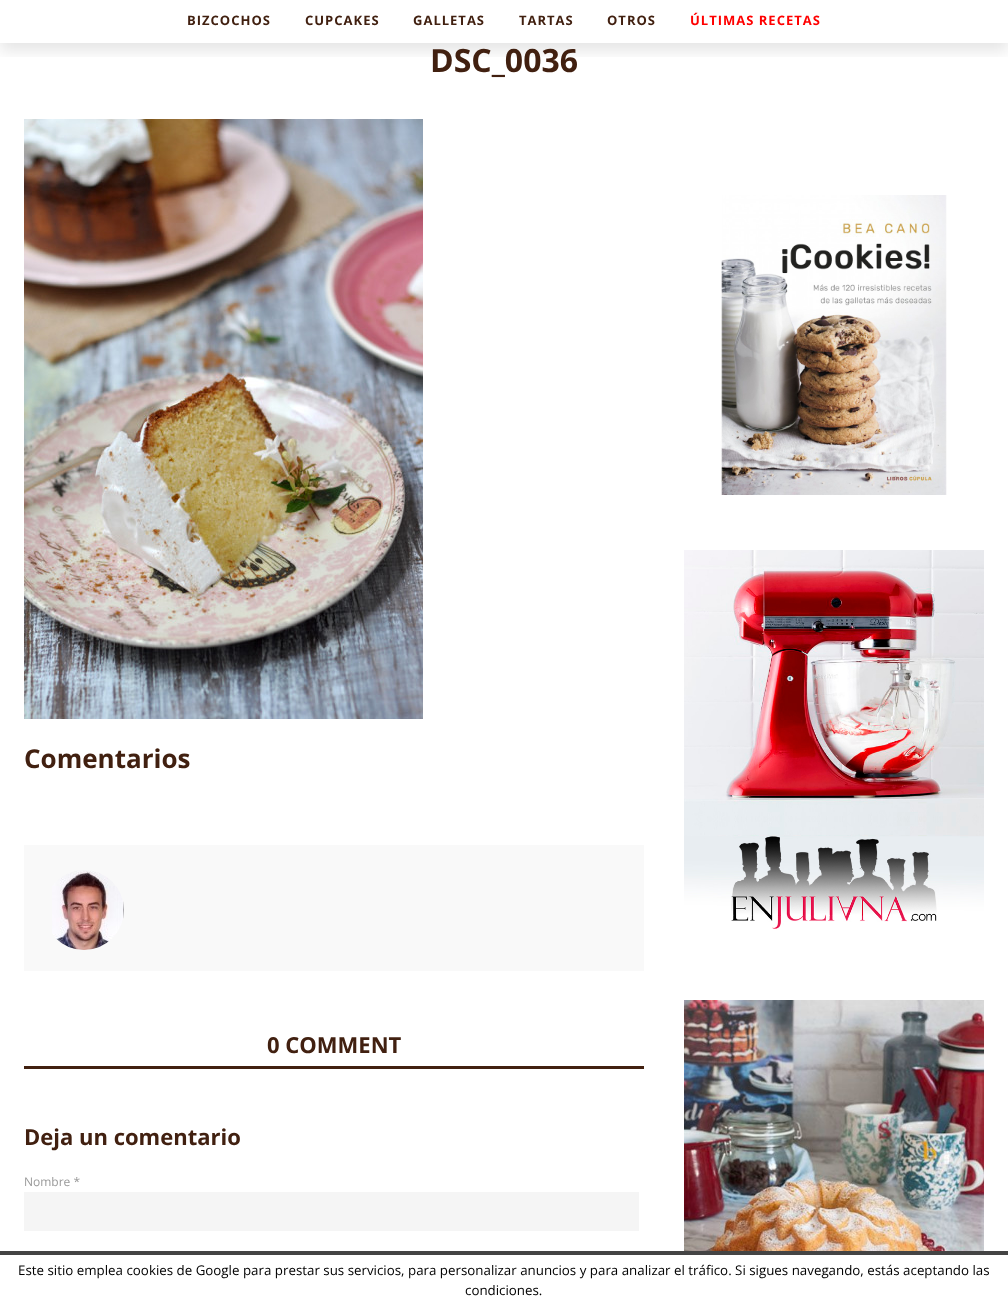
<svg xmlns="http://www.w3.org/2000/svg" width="1008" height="1306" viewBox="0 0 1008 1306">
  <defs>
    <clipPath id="clip1"><rect x="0" y="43" width="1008" height="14"/></clipPath>
    <filter id="blur1" x="-50%" y="-200%" width="200%" height="500%"><feGaussianBlur stdDeviation="7.5"/></filter>
  </defs>
  <rect width="100%" height="100%" fill="#ffffff"/>
  <g clip-path="url(#clip1)">
    <rect x="0" y="8" width="1008" height="43" fill="#000000" fill-opacity="0.1" filter="url(#blur1)"/>
  </g>
  <text x="187" y="25" font-family="Open Sans" font-size="13" font-weight="bold" letter-spacing="1" fill="#412010">BIZCOCHOS</text>
  <text x="305" y="25" font-family="Open Sans" font-size="13" font-weight="bold" letter-spacing="1" fill="#412010">CUPCAKES</text>
  <text x="413" y="25" font-family="Open Sans" font-size="13" font-weight="bold" letter-spacing="1" fill="#412010">GALLETAS</text>
  <text x="519" y="25" font-family="Open Sans" font-size="13" font-weight="bold" letter-spacing="1" fill="#412010">TARTAS</text>
  <text x="607" y="25" font-family="Open Sans" font-size="13" font-weight="bold" letter-spacing="1" fill="#412010">OTROS</text>
  <text x="690" y="25" font-family="Open Sans" font-size="13" font-weight="bold" letter-spacing="1" fill="#ff0000">ÚLTIMAS RECETAS</text>
  <text x="430" y="72" font-family="Open Sans" font-size="32" font-weight="bold" fill="#412010">DSC_0036</text>
  <image x="24" y="119" width="399" height="600" href="img1.png"/>
  <text x="24" y="768" font-family="Open Sans" font-size="26" font-weight="bold" fill="#412010">Comentarios</text>
  <rect x="24" y="845" width="620" height="126" fill="#f9f9f9"/>
  <image x="52" y="870" width="72" height="80" href="img2.png"/>
  <rect x="24" y="1066" width="620" height="3" fill="#412010"/>
  <text x="267" y="1053" font-family="Open Sans" font-size="22" font-weight="bold" fill="#412010">0 COMMENT</text>
  <text x="24" y="1145" font-family="Open Sans" font-size="22" font-weight="bold" fill="#412010">Deja un comentario</text>
  <text x="24" y="1186" font-family="Open Sans" font-size="12" fill="#999999">Nombre *</text>
  <rect x="24" y="1192" width="615" height="39" fill="#f5f5f5"/>
  <image x="720" y="195" width="227" height="300" href="img3.png"/>
  <image x="684" y="550" width="300" height="379" href="img4.png"/>
  <image x="684" y="1000" width="300" height="251" href="img5.png"/>
  <rect x="0" y="1251" width="1008" height="4" fill="#444444"/>
  <text x="18" y="1275" font-family="Open Sans" font-size="13.33" fill="#000000">Este sitio emplea cookies de Google para prestar sus servicios, para personalizar anuncios y para analizar el tráfico. Si sigues navegando, estás aceptando las</text>
  <text x="465" y="1295" font-family="Open Sans" font-size="13.33" fill="#000000">condiciones.</text>
</svg>
